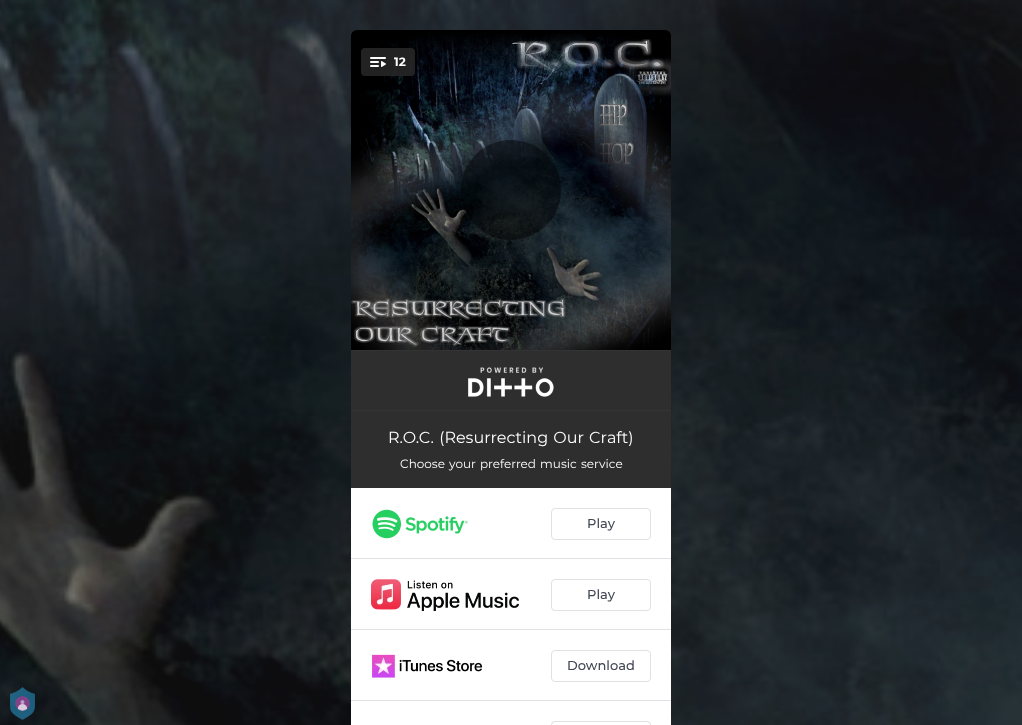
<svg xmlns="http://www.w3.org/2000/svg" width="1022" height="725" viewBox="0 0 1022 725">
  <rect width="100%" height="100%" fill="#ffffff"/>
  <image x="0" y="0" width="1022" height="725" href="img1.png"/>
  <image x="351" y="30" width="320" height="320" href="img2.png"/>
  <rect x="361" y="48" width="54" height="28" rx="4" fill="#282828" fill-opacity="0.85"/>
  <image x="370" y="57" width="16" height="10" href="img3.png"/>
  <text x="394" y="66" font-family="Montserrat" font-size="12" font-weight="bold" fill="#ffffff">12</text>
  <circle cx="511" cy="190" r="50" fill="#000000" fill-opacity="0.45"/>
  <rect x="351" y="351" width="320" height="59" fill="#2e2e2e"/>
  <rect x="351" y="350" width="320" height="1" fill="#333333"/>
  <rect x="351" y="410" width="320" height="1" fill="#333333"/>
  <image x="468" y="367" width="86" height="30" href="img4.png"/>
  <rect x="351" y="411" width="320" height="77" fill="#2e2e2e"/>
  <text x="388" y="443" word-spacing="1" font-family="Montserrat" font-size="16" fill="#ffffff">R.O.C. (Resurrecting Our Craft)</text>
  <text x="400" y="468" word-spacing="1" font-family="Montserrat" font-size="12" fill="#ffffff">Choose your preferred music service</text>
  <rect x="351" y="488" width="320" height="237" fill="#ffffff"/>
  <rect x="351" y="558" width="320" height="1" fill="#e1e1e4"/>
  <image x="372" y="509" width="96" height="30" href="img5.png"/>
  <rect x="551.5" y="508.5" width="99" height="31" rx="3.5" fill="none" stroke="#e1e1e4"/>
  <text x="587" y="528" font-family="Montserrat" font-size="13" font-weight="500" fill="#414754">Play</text>
  <rect x="351" y="629" width="320" height="1" fill="#e1e1e4"/>
  <image x="371" y="579" width="148" height="32" href="img6.png"/>
  <rect x="551.5" y="579.5" width="99" height="31" rx="3.5" fill="none" stroke="#e1e1e4"/>
  <text x="587" y="599" font-family="Montserrat" font-size="13" font-weight="500" fill="#414754">Play</text>
  <rect x="351" y="700" width="320" height="1" fill="#e1e1e4"/>
  <image x="372" y="654" width="111" height="24" href="img7.png"/>
  <rect x="551.5" y="650.5" width="99" height="31" rx="3.5" fill="none" stroke="#e1e1e4"/>
  <text x="567" y="670" font-family="Montserrat" font-size="13" font-weight="500" fill="#414754">Download</text>
  <rect x="551.5" y="721.5" width="99" height="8" rx="3.5" fill="none" stroke="#e1e1e4"/>
  <image x="10" y="687" width="25" height="33" href="img8.png"/>
</svg>
